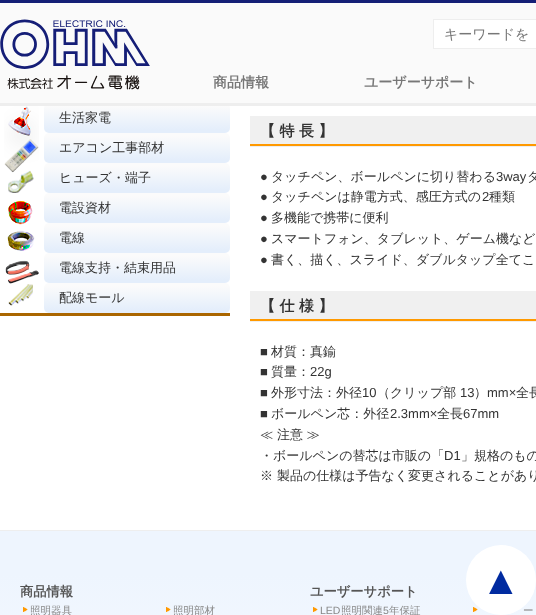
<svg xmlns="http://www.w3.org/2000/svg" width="536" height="615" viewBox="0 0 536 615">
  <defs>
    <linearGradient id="g1" gradientUnits="userSpaceOnUse" x1="137" y1="103" x2="137" y2="133"><stop offset="0.1" stop-color="#fbfbfb"/><stop offset="0.9" stop-color="#e4eefb"/></linearGradient>
    <linearGradient id="g2" gradientUnits="userSpaceOnUse" x1="530" y1="531" x2="530" y2="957"><stop offset="0.1" stop-color="#eef5fe"/><stop offset="0.9" stop-color="#ffffff"/></linearGradient>
    <linearGradient id="g3" gradientUnits="userSpaceOnUse" x1="137" y1="133" x2="137" y2="163"><stop offset="0.1" stop-color="#fbfbfb"/><stop offset="0.9" stop-color="#e4eefb"/></linearGradient>
    <linearGradient id="g4" gradientUnits="userSpaceOnUse" x1="137" y1="163" x2="137" y2="193"><stop offset="0.1" stop-color="#fbfbfb"/><stop offset="0.9" stop-color="#e4eefb"/></linearGradient>
    <linearGradient id="g5" gradientUnits="userSpaceOnUse" x1="137" y1="193" x2="137" y2="223"><stop offset="0.1" stop-color="#fbfbfb"/><stop offset="0.9" stop-color="#e4eefb"/></linearGradient>
    <linearGradient id="g6" gradientUnits="userSpaceOnUse" x1="137" y1="223" x2="137" y2="253"><stop offset="0.1" stop-color="#fbfbfb"/><stop offset="0.9" stop-color="#e4eefb"/></linearGradient>
    <linearGradient id="g7" gradientUnits="userSpaceOnUse" x1="137" y1="253" x2="137" y2="283"><stop offset="0.1" stop-color="#fbfbfb"/><stop offset="0.9" stop-color="#e4eefb"/></linearGradient>
    <linearGradient id="g8" gradientUnits="userSpaceOnUse" x1="137" y1="283" x2="137" y2="313"><stop offset="0.1" stop-color="#fbfbfb"/><stop offset="0.9" stop-color="#e4eefb"/></linearGradient>
  </defs>
  <rect width="100%" height="100%" fill="#ffffff"/>
  <rect x="0" y="3" width="536" height="100" fill="#fafafa"/>
  <rect x="0" y="0" width="536" height="3" fill="#141f76"/>
  <rect x="44" y="103" width="186" height="30" rx="5" fill="url(#g1)"/>
  <rect x="0" y="103" width="536" height="3" fill="#eeeeee"/>
  <rect x="433.5" y="19.5" width="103" height="29" fill="#ffffff" stroke="#eeeeee"/>
  <text x="444" y="39" font-family="WenQuanYi Zen Hei" font-size="14" font-weight="500" fill="#777777">キーワードを</text>
  <image x="0" y="19" width="150" height="71" href="img1.png"/>
  <text x="213" y="87" font-family="WenQuanYi Zen Hei" font-size="14" font-weight="bold" fill="#777777">商品情報</text>
  <text x="364" y="87" font-family="WenQuanYi Zen Hei" font-size="14" font-weight="bold" fill="#777777">ユーザーサポート</text>
  <rect x="0" y="531" width="536" height="84" fill="url(#g2)"/>
  <image x="473" y="607" width="5" height="5" href="img4.png"/>
  <text x="523" y="614" font-family="WenQuanYi Zen Hei" font-size="10.5" font-weight="500" fill="#888888">ー</text>
  <circle cx="501" cy="580" r="35" fill="#ffffff"/>
  <text x="481" y="594" font-family="Liberation Sans" font-size="40" fill="#002ba0">▲</text>
  <image x="4" y="106" width="35" height="200" href="img2.png"/>
  <rect x="0" y="313" width="230" height="3" fill="#aa6600"/>
  <text x="59" y="122" font-family="WenQuanYi Zen Hei" font-size="13" font-weight="500" fill="#333333">生活家電</text>
  <rect x="44" y="133" width="186" height="30" rx="5" fill="url(#g3)"/>
  <text x="59" y="152" font-family="WenQuanYi Zen Hei" font-size="13" font-weight="500" fill="#333333">エアコン工事部材</text>
  <rect x="44" y="163" width="186" height="30" rx="5" fill="url(#g4)"/>
  <text x="59" y="182" font-family="WenQuanYi Zen Hei" font-size="13" font-weight="500" fill="#333333">ヒューズ・端子</text>
  <rect x="44" y="193" width="186" height="30" rx="5" fill="url(#g5)"/>
  <text x="59" y="212" font-family="WenQuanYi Zen Hei" font-size="13" font-weight="500" fill="#333333">電設資材</text>
  <rect x="44" y="223" width="186" height="30" rx="5" fill="url(#g6)"/>
  <text x="59" y="242" font-family="WenQuanYi Zen Hei" font-size="13" font-weight="500" fill="#333333">電線</text>
  <rect x="44" y="253" width="186" height="30" rx="5" fill="url(#g7)"/>
  <text x="59" y="272" font-family="WenQuanYi Zen Hei" font-size="13" font-weight="500" fill="#333333">電線支持・結束用品</text>
  <rect x="44" y="283" width="186" height="30" rx="5" fill="url(#g8)"/>
  <text x="59" y="302" font-family="WenQuanYi Zen Hei" font-size="13" font-weight="500" fill="#333333">配線モール</text>
  <image x="250" y="116" width="286" height="30" href="img3.png"/>
  <rect x="250" y="146" width="286" height="1" fill="#eeeeee"/>
  <text x="260" y="136" font-family="WenQuanYi Zen Hei" font-size="15" font-weight="bold" fill="#333333">【 特 長 】</text>
  <text x="260" y="181" font-family="Liberation Sans" font-size="13" fill="#333333">●</text>
  <text x="271" y="181" font-family="WenQuanYi Zen Hei" font-size="13" font-weight="500" fill="#333333">タッチペン、ボールペンに切り替わる</text>
  <text x="496" y="181" font-family="Liberation Sans" font-size="13" fill="#333333">3way</text>
  <text x="527" y="181" font-family="WenQuanYi Zen Hei" font-size="13" font-weight="500" fill="#333333">タ</text>
  <text x="260" y="201" font-family="Liberation Sans" font-size="13" fill="#333333">●</text>
  <text x="271" y="201" font-family="WenQuanYi Zen Hei" font-size="13" font-weight="500" fill="#333333">タッチペンは静電方式、感圧方式の</text>
  <text x="482" y="201" font-family="Liberation Sans" font-size="13" fill="#333333">2</text>
  <text x="489" y="201" font-family="WenQuanYi Zen Hei" font-size="13" font-weight="500" fill="#333333">種類</text>
  <text x="260" y="222" font-family="Liberation Sans" font-size="13" fill="#333333">●</text>
  <text x="271" y="222" font-family="WenQuanYi Zen Hei" font-size="13" font-weight="500" fill="#333333">多機能で携帯に便利</text>
  <text x="260" y="243" font-family="Liberation Sans" font-size="13" fill="#333333">●</text>
  <text x="271" y="243" font-family="WenQuanYi Zen Hei" font-size="13" font-weight="500" fill="#333333">スマートフォン、タブレット、ゲーム機など</text>
  <text x="260" y="264" font-family="Liberation Sans" font-size="13" fill="#333333">●</text>
  <text x="271" y="264" font-family="WenQuanYi Zen Hei" font-size="13" font-weight="500" fill="#333333">書く、描く、スライド、ダブルタップ全てこ</text>
  <image x="250" y="291" width="286" height="30" href="img3.png"/>
  <rect x="250" y="321" width="286" height="1" fill="#eeeeee"/>
  <text x="260" y="311" font-family="WenQuanYi Zen Hei" font-size="15" font-weight="bold" fill="#333333">【 仕 様 】</text>
  <text x="260" y="356" font-family="Liberation Sans" font-size="13" fill="#333333">■</text>
  <text x="271" y="356" font-family="WenQuanYi Zen Hei" font-size="13" font-weight="500" fill="#333333">材質：真鍮</text>
  <text x="260" y="376" font-family="Liberation Sans" font-size="13" fill="#333333">■</text>
  <text x="271" y="376" font-family="WenQuanYi Zen Hei" font-size="13" font-weight="500" fill="#333333">質量：</text>
  <text x="310" y="376" font-family="Liberation Sans" font-size="13" fill="#333333">22g</text>
  <text x="260" y="397" font-family="Liberation Sans" font-size="13" fill="#333333">■</text>
  <text x="271" y="397" font-family="WenQuanYi Zen Hei" font-size="13" font-weight="500" fill="#333333">外形寸法：外径</text>
  <text x="362" y="397" font-family="Liberation Sans" font-size="13" fill="#333333">10</text>
  <text x="377" y="397" font-family="WenQuanYi Zen Hei" font-size="13" font-weight="500" fill="#333333">（クリップ部</text>
  <text x="460" y="397" font-family="Liberation Sans" font-size="13" fill="#333333">13</text>
  <text x="474" y="397" font-family="WenQuanYi Zen Hei" font-size="13" font-weight="500" fill="#333333">）</text>
  <text x="487" y="397" font-family="Liberation Sans" font-size="13" fill="#333333">mm×</text>
  <text x="516" y="397" font-family="WenQuanYi Zen Hei" font-size="13" font-weight="500" fill="#333333">全長</text>
  <text x="260" y="418" font-family="Liberation Sans" font-size="13" fill="#333333">■</text>
  <text x="271" y="418" font-family="WenQuanYi Zen Hei" font-size="13" font-weight="500" fill="#333333">ボールペン芯：外径</text>
  <text x="390" y="418" font-family="Liberation Sans" font-size="13" fill="#333333">2.3mm×</text>
  <text x="437" y="418" font-family="WenQuanYi Zen Hei" font-size="13" font-weight="500" fill="#333333">全長</text>
  <text x="463" y="418" font-family="Liberation Sans" font-size="13" fill="#333333">67mm</text>
  <text x="260" y="439" font-family="WenQuanYi Zen Hei" font-size="13" font-weight="500" fill="#333333">≪ 注意 ≫</text>
  <text x="260" y="460" font-family="WenQuanYi Zen Hei" font-size="13" font-weight="500" fill="#333333">・ボールペンの替芯は市販の「</text>
  <text x="444" y="460" font-family="Liberation Sans" font-size="13" fill="#333333">D1</text>
  <text x="461" y="460" font-family="WenQuanYi Zen Hei" font-size="13" font-weight="500" fill="#333333">」規格のもの</text>
  <text x="260" y="480" font-family="WenQuanYi Zen Hei" font-size="13" font-weight="500" fill="#333333">※ 製品の仕様は予告なく変更されることがあり</text>
  <rect x="0" y="530" width="536" height="1" fill="#eeeeee"/>
  <text x="20" y="596" font-family="WenQuanYi Zen Hei" font-size="13.25" font-weight="bold" fill="#555555">商品情報</text>
  <image x="23" y="607" width="5" height="5" href="img4.png"/>
  <text x="30" y="614" font-family="WenQuanYi Zen Hei" font-size="10.5" font-weight="500" fill="#888888">照明器具</text>
  <image x="166" y="607" width="5" height="5" href="img5.png"/>
  <text x="173" y="614" font-family="WenQuanYi Zen Hei" font-size="10.5" font-weight="500" fill="#888888">照明部材</text>
  <text x="310" y="596" font-family="WenQuanYi Zen Hei" font-size="13.25" font-weight="bold" fill="#555555">ユーザーサポート</text>
  <image x="313" y="607" width="5" height="5" href="img4.png"/>
  <text x="320" y="614" font-family="Liberation Sans" font-size="10.5" fill="#888888">LED</text>
  <text x="341" y="614" font-family="WenQuanYi Zen Hei" font-size="10.5" font-weight="500" fill="#888888">照明関連</text>
  <text x="383" y="614" font-family="Liberation Sans" font-size="10.5" fill="#888888">5</text>
  <text x="389" y="614" font-family="WenQuanYi Zen Hei" font-size="10.5" font-weight="500" fill="#888888">年保証</text>
</svg>
